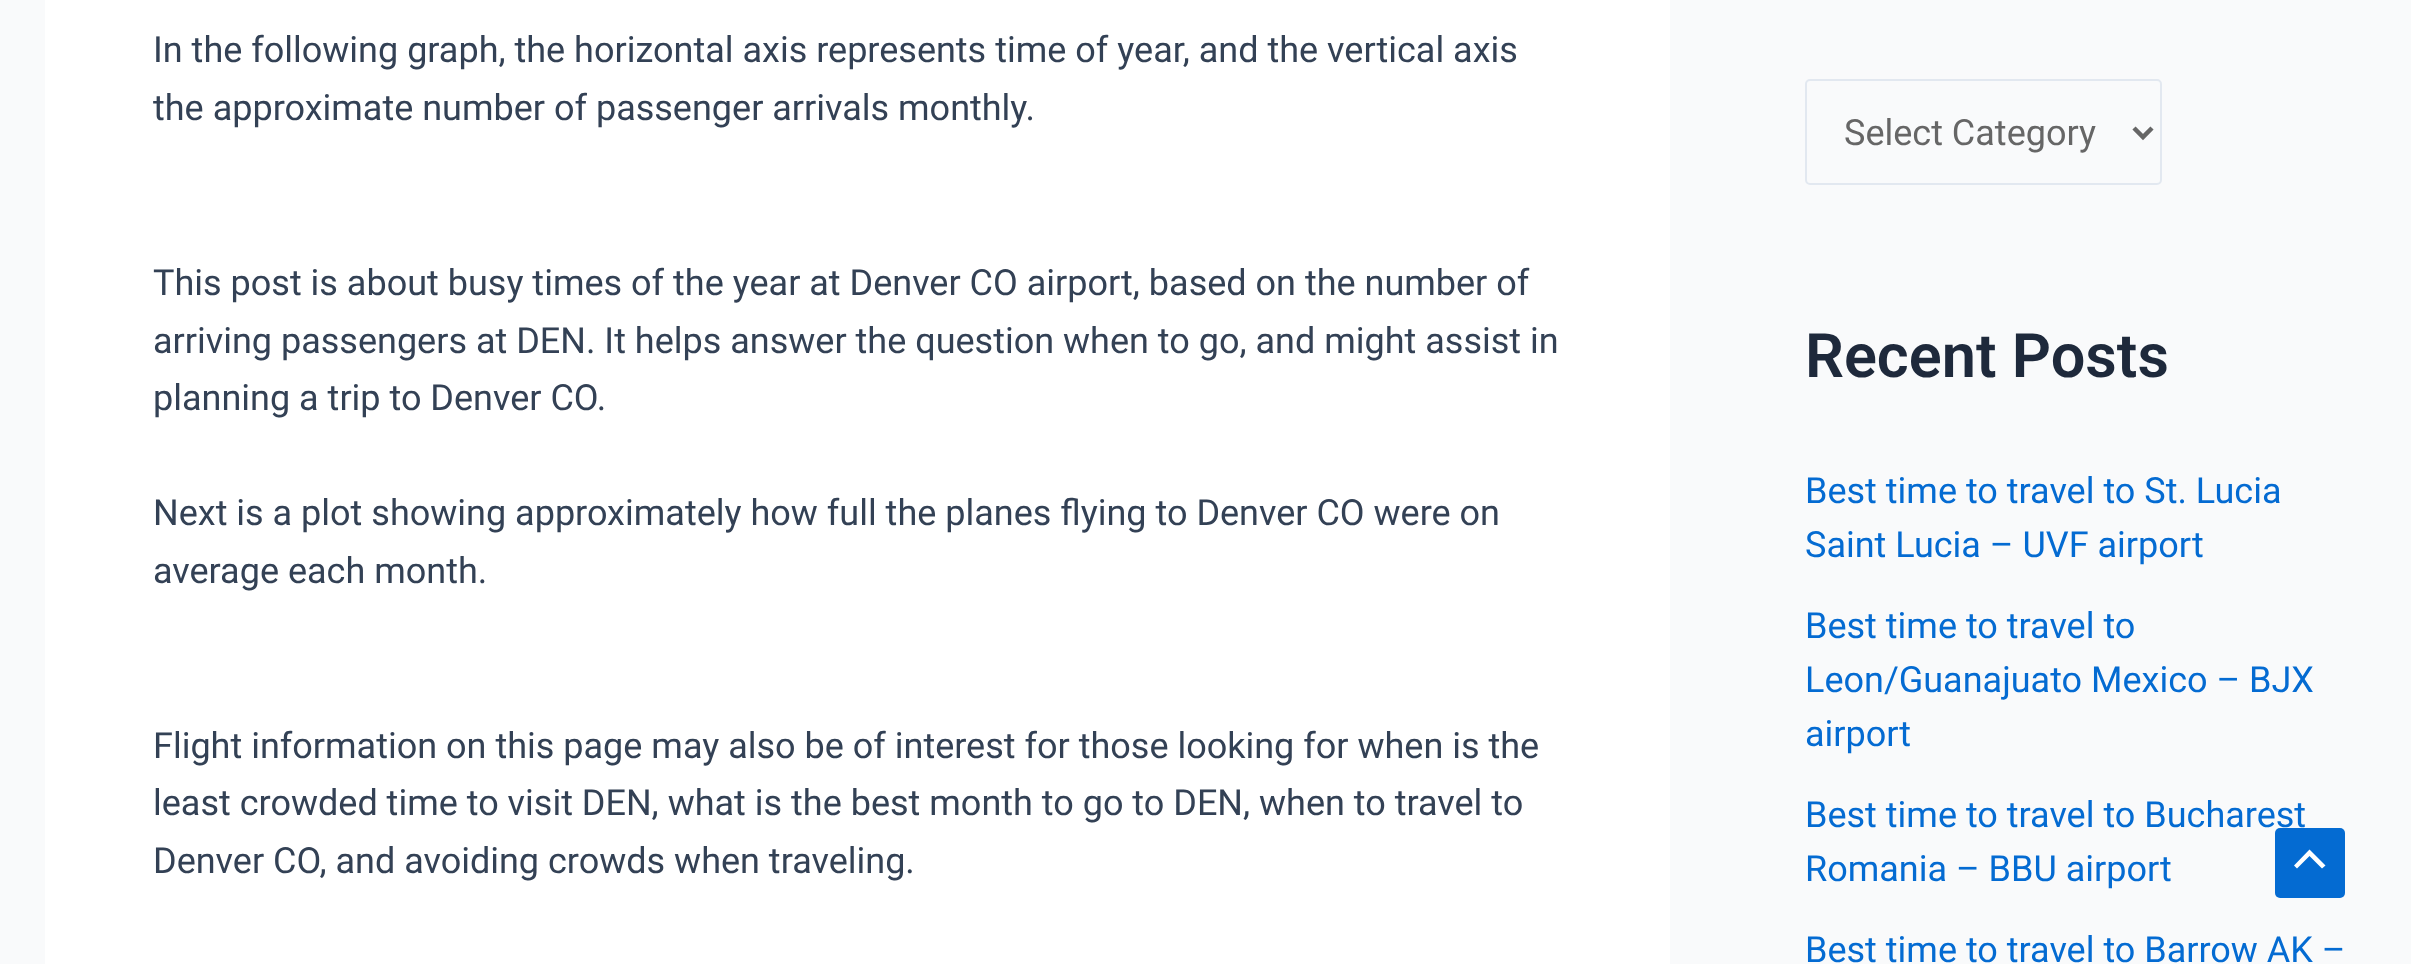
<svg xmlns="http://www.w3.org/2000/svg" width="2411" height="964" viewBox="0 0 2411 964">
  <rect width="100%" height="100%" fill="#f9fafb"/>
  <rect x="45" y="0" width="1625" height="964" fill="#ffffff"/>
  <text x="153" y="62" font-family="Roboto" font-size="36" fill="#334155">In the following graph, the horizontal axis represents time of year, and the vertical axis</text>
  <text x="153" y="120" font-family="Roboto" font-size="36" fill="#334155">the approximate number of passenger arrivals monthly.</text>
  <text x="153" y="295" font-family="Roboto" font-size="36" fill="#334155">This post is about busy times of the year at Denver CO airport, based on the number of</text>
  <text x="153" y="353" font-family="Roboto" font-size="36" fill="#334155">arriving passengers at DEN. It helps answer the question when to go, and might assist in</text>
  <text x="153" y="410" font-family="Roboto" font-size="36" fill="#334155">planning a trip to Denver CO.</text>
  <text x="153" y="525" font-family="Roboto" font-size="36" fill="#334155">Next is a plot showing approximately how full the planes flying to Denver CO were on</text>
  <text x="153" y="583" font-family="Roboto" font-size="36" fill="#334155">average each month.</text>
  <text x="153" y="758" font-family="Roboto" font-size="36" fill="#334155">Flight information on this page may also be of interest for those looking for when is the</text>
  <text x="153" y="815" font-family="Roboto" font-size="36" fill="#334155">least crowded time to visit DEN, what is the best month to go to DEN, when to travel to</text>
  <text x="153" y="873" font-family="Roboto" font-size="36" fill="#334155">Denver CO, and avoiding crowds when traveling.</text>
  <rect x="1806" y="80" width="355" height="104" rx="4" fill="none" stroke="#e2e8f0" stroke-width="2"/>
  <path d="M2134 128L2143 137L2152 128" fill="none" stroke="#666666" stroke-width="4.5"/>
  <text x="1844" y="145" font-family="Roboto" font-size="36" fill="#666666">Select Category</text>
  <text x="1805" y="377" font-family="Roboto" font-size="61.25" font-weight="600" fill="#1e293b">Recent Posts</text>
  <text x="1805" y="503" font-family="Roboto" font-size="36" fill="#046bd2">Best time to travel to St. Lucia</text>
  <text x="1805" y="557" font-family="Roboto" font-size="36" fill="#046bd2">Saint Lucia – UVF airport</text>
  <text x="1805" y="638" font-family="Roboto" font-size="36" fill="#046bd2">Best time to travel to</text>
  <text x="1805" y="692" font-family="Roboto" font-size="36" fill="#046bd2">Leon/Guanajuato Mexico – BJX</text>
  <text x="1805" y="746" font-family="Roboto" font-size="36" fill="#046bd2">airport</text>
  <text x="1805" y="827" font-family="Roboto" font-size="36" fill="#046bd2">Best time to travel to Bucharest</text>
  <text x="1805" y="881" font-family="Roboto" font-size="36" fill="#046bd2">Romania – BBU airport</text>
  <text x="1805" y="962" font-family="Roboto" font-size="36" fill="#046bd2">Best time to travel to Barrow AK –</text>
  <rect x="2275" y="828" width="70" height="70" rx="5" fill="#046bd2"/>
  <path d="M2325.5 865.5L2309.5 849.5L2294 865.5L2297 868.5L2309.5 856L2322 868.5Z" fill="#ffffff"/>
</svg>
